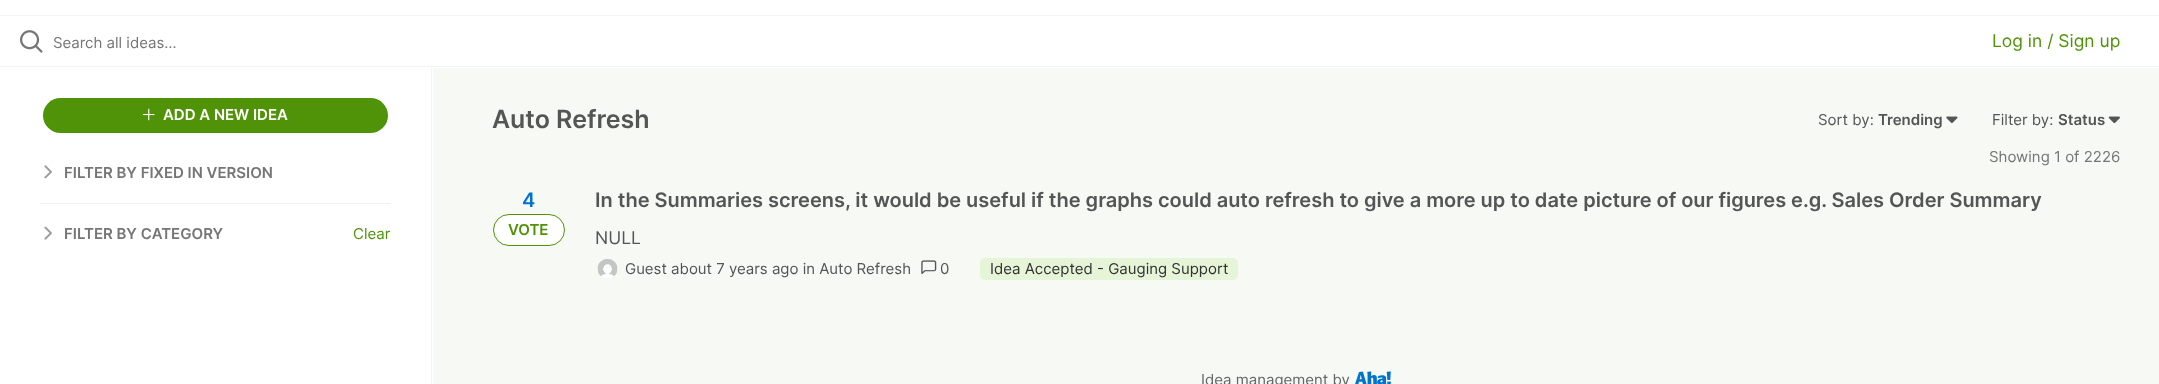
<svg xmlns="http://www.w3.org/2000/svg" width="2159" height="384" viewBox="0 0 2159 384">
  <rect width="100%" height="100%" fill="#f7faf4"/>
  <rect x="0" y="0" width="2159" height="15" fill="#ffffff"/>
  <rect x="0" y="15" width="2159" height="1" fill="#f4f4f4"/>
  <rect x="0" y="16" width="2159" height="52" fill="#ffffff"/>
  <rect x="0" y="66" width="2159" height="1" fill="#f4f4f4"/>
  <image x="20" y="30" width="23" height="23" href="img1.png"/>
  <text x="53" y="48" font-family="Inter" font-size="15" fill="#767676">Search all ideas…</text>
  <text x="1992" y="47" font-family="Inter" font-size="17.5" fill="#509308">Log in / Sign up</text>
  <rect x="0" y="68" width="433" height="316" fill="#ffffff"/>
  <rect x="431" y="68" width="1" height="316" fill="#f4f4f4"/>
  <rect x="43" y="98" width="345" height="35" rx="17.5" fill="#509308"/>
  <image x="142" y="108" width="13" height="13" href="img2.png"/>
  <text x="163" y="120" font-family="Inter" font-size="15" font-weight="600" fill="#ffffff">ADD A NEW IDEA</text>
  <image x="44" y="165" width="8" height="14" href="img3.png"/>
  <text x="64" y="178" font-family="Inter" font-size="15" font-weight="600" fill="#767676">FILTER BY FIXED IN VERSION</text>
  <rect x="40" y="203" width="351" height="1" fill="#f1f1f1"/>
  <image x="44" y="226" width="8" height="14" href="img4.png"/>
  <text x="64" y="239" font-family="Inter" font-size="15" font-weight="600" fill="#767676">FILTER BY CATEGORY</text>
  <text x="353" y="239" font-family="Inter" font-size="15" fill="#509308">Clear</text>
  <text x="492" y="128" font-family="Inter" font-size="25" font-weight="600" fill="#555555">Auto Refresh</text>
  <text x="1818" y="125" font-family="Inter" font-size="15" fill="#555555">Sort by:</text>
  <text x="1878" y="125" font-family="Inter" font-size="15" font-weight="600" fill="#555555">Trending</text>
  <image x="1946" y="116" width="12" height="8" href="img5.png"/>
  <text x="1992" y="125" font-family="Inter" font-size="15" fill="#555555">Filter by:</text>
  <text x="2058" y="125" font-family="Inter" font-size="15" font-weight="600" fill="#555555">Status</text>
  <image x="2108" y="116" width="12" height="8" href="img6.png"/>
  <text x="1989" y="162" font-family="Inter" font-size="15" fill="#767676">Showing 1 of 2226</text>
  <text x="522" y="207" font-family="Inter" font-size="20" font-weight="600" fill="#0073cf">4</text>
  <rect x="493.5" y="214.5" width="71" height="31" rx="15.5" fill="#ffffff" stroke="#509308"/>
  <text x="508" y="235" font-family="Inter" font-size="15" font-weight="600" fill="#509308">VOTE</text>
  <text x="595" y="207" font-family="Inter" font-size="20" font-weight="600" fill="#555555">In the Summaries screens, it would be useful if the graphs could auto refresh to give a more up to date picture of our figures e.g. Sales Order Summary</text>
  <text x="595" y="244" font-family="Inter" font-size="17.5" fill="#555555">NULL</text>
  <image x="597" y="259" width="21" height="19" href="img7.png"/>
  <text x="625" y="274" font-family="Inter" font-size="15" fill="#555555">Guest about 7 years ago in Auto Refresh</text>
  <image x="921" y="260" width="16" height="14" href="img8.png"/>
  <text x="940" y="274" font-family="Inter" font-size="15" fill="#555555">0</text>
  <rect x="980" y="258" width="258" height="22" rx="5" fill="#e6f4d8"/>
  <text x="990" y="274" font-family="Inter" font-size="15" fill="#333333">Idea Accepted - Gauging Support</text>
  <text x="1201" y="385" font-family="Inter" font-size="15" fill="#666666">Idea management by</text>
  <image x="1355" y="371" width="36" height="13" href="img9.png"/>
</svg>
